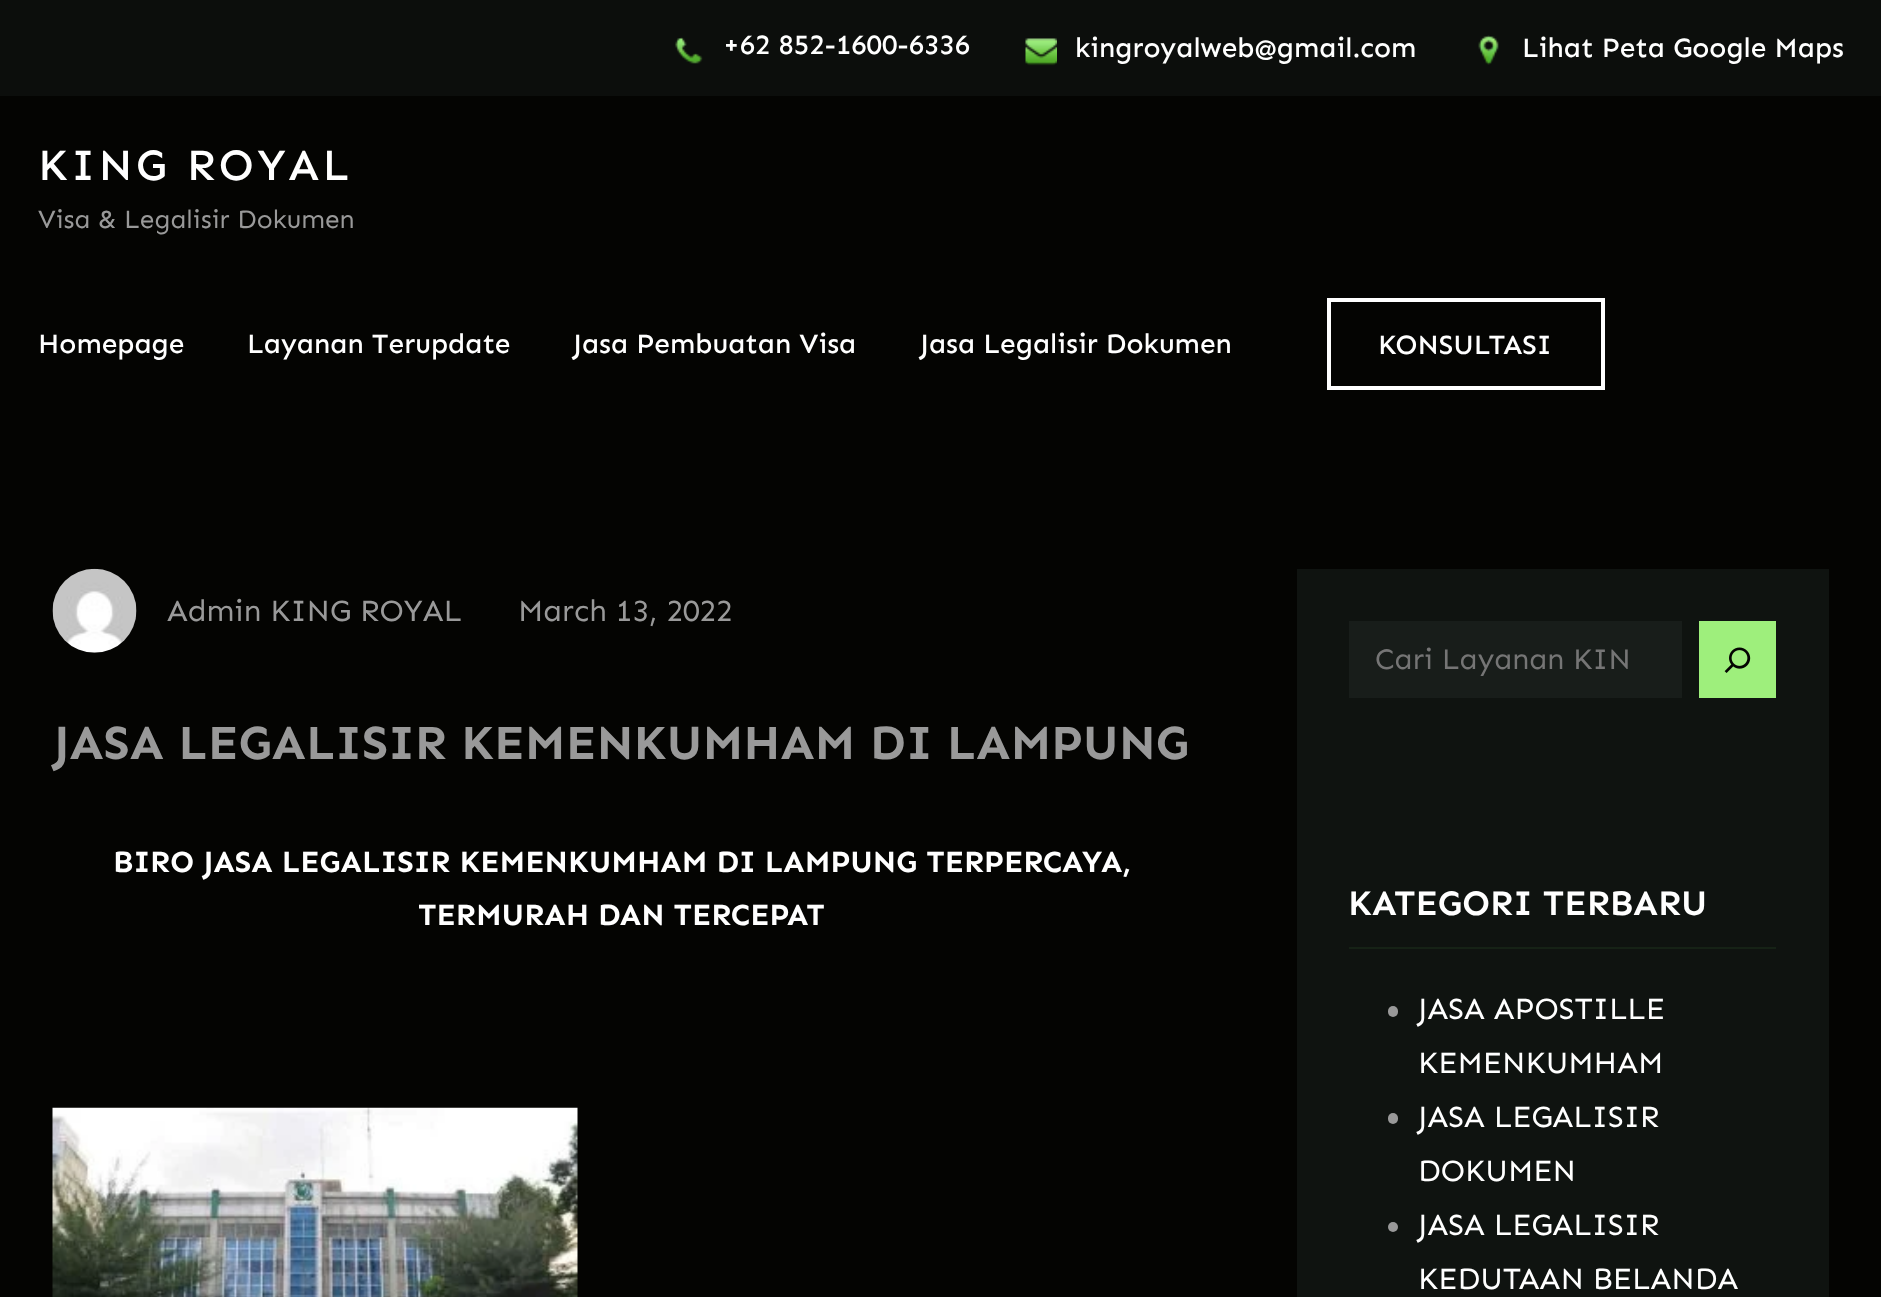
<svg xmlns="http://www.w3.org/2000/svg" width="1881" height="1297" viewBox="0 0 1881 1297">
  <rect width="100%" height="100%" fill="#040402"/>
  <rect x="0" y="0" width="1881" height="96" fill="#0c0e0c"/>
  <image x="675" y="37" width="28" height="27" href="img1.png"/>
  <text x="723" y="54" font-family="Sen" font-size="28" font-weight="500" fill="#ffffff">+62 852-1600-6336</text>
  <image x="1025" y="38" width="32" height="28" href="img2.png"/>
  <text x="1075" y="57" font-family="Sen" font-size="28" font-weight="500" fill="#ffffff">kingroyalweb@gmail.com</text>
  <image x="1478" y="35" width="21" height="30" href="img3.png"/>
  <text x="1522" y="57" font-family="Sen" font-size="28" font-weight="500" fill="#ffffff">Lihat Peta Google Maps</text>
  <text x="38" y="180" font-family="Sen" font-size="44.75" font-weight="500" letter-spacing="3.5" fill="#ffffff">KING ROYAL</text>
  <text x="38" y="228" font-family="Sen" font-size="26.25" fill="#999999">Visa &amp; Legalisir Dokumen</text>
  <text x="38" y="353" font-family="Sen" font-size="28" font-weight="500" fill="#ffffff">Homepage</text>
  <text x="247" y="353" font-family="Sen" font-size="28" font-weight="500" fill="#ffffff">Layanan Terupdate</text>
  <text x="573" y="353" font-family="Sen" font-size="28" font-weight="500" fill="#ffffff">Jasa Pembuatan Visa</text>
  <text x="920" y="353" font-family="Sen" font-size="28" font-weight="500" fill="#ffffff">Jasa Legalisir Dokumen</text>
  <rect x="1329" y="300" width="274" height="88" fill="none" stroke="#ffffff" stroke-width="4"/>
  <text x="1378" y="354" font-family="Sen" font-size="28" font-weight="500" fill="#ffffff">KONSULTASI</text>
  <image x="52" y="568" width="85" height="85" href="img4.png"/>
  <text x="167" y="621" font-family="Sen" font-size="30.8" fill="#999999">Admin KING ROYAL</text>
  <text x="518" y="621" font-family="Sen" font-size="30.8" fill="#999999">March 13, 2022</text>
  <text x="53" y="759" font-family="Sen" font-size="49" font-weight="bold" fill="#999999">JASA LEGALISIR KEMENKUMHAM DI LAMPUNG</text>
  <text x="113" y="872" font-family="Sen" font-size="30.8" font-weight="bold" fill="#ffffff">BIRO JASA LEGALISIR KEMENKUMHAM DI LAMPUNG TERPERCAYA,</text>
  <text x="418" y="925" font-family="Sen" font-size="30.8" font-weight="bold" fill="#ffffff">TERMURAH DAN TERCEPAT</text>
  <image x="52" y="1107" width="526" height="190" href="img5.png"/>
  <rect x="1297" y="569" width="532" height="728" fill="#0f1310"/>
  <rect x="1349" y="621" width="333" height="77" fill="#181d1a"/>
  <text x="1375" y="669" font-family="Sen" font-size="29.75" fill="#757575">Cari Layanan KIN</text>
  <rect x="1699" y="621" width="77" height="77" fill="#9eef7c"/>
  <image x="1724" y="647" width="27" height="26" href="img6.png"/>
  <text x="1348" y="915" font-family="Sen" font-size="35.75" font-weight="600" fill="#ffffff">KATEGORI TERBARU</text>
  <rect x="1349" y="947" width="427" height="2" fill="#162216"/>
  <rect x="1388" y="1006" width="10" height="11" rx="5" fill="#999999"/>
  <text x="1418" y="1019" font-family="Sen" font-size="30.8" fill="#ffffff">JASA APOSTILLE</text>
  <text x="1418" y="1073" font-family="Sen" font-size="30.8" fill="#ffffff">KEMENKUMHAM</text>
  <rect x="1388" y="1113" width="10" height="11" rx="5" fill="#999999"/>
  <text x="1418" y="1127" font-family="Sen" font-size="30.8" fill="#ffffff">JASA LEGALISIR</text>
  <text x="1418" y="1181" font-family="Sen" font-size="30.8" fill="#ffffff">DOKUMEN</text>
  <circle cx="1393" cy="1227" r="5" fill="#999999"/>
  <text x="1418" y="1235" font-family="Sen" font-size="30.8" fill="#ffffff">JASA LEGALISIR</text>
  <text x="1418" y="1289" font-family="Sen" font-size="30.8" fill="#ffffff">KEDUTAAN BELANDA</text>
</svg>
